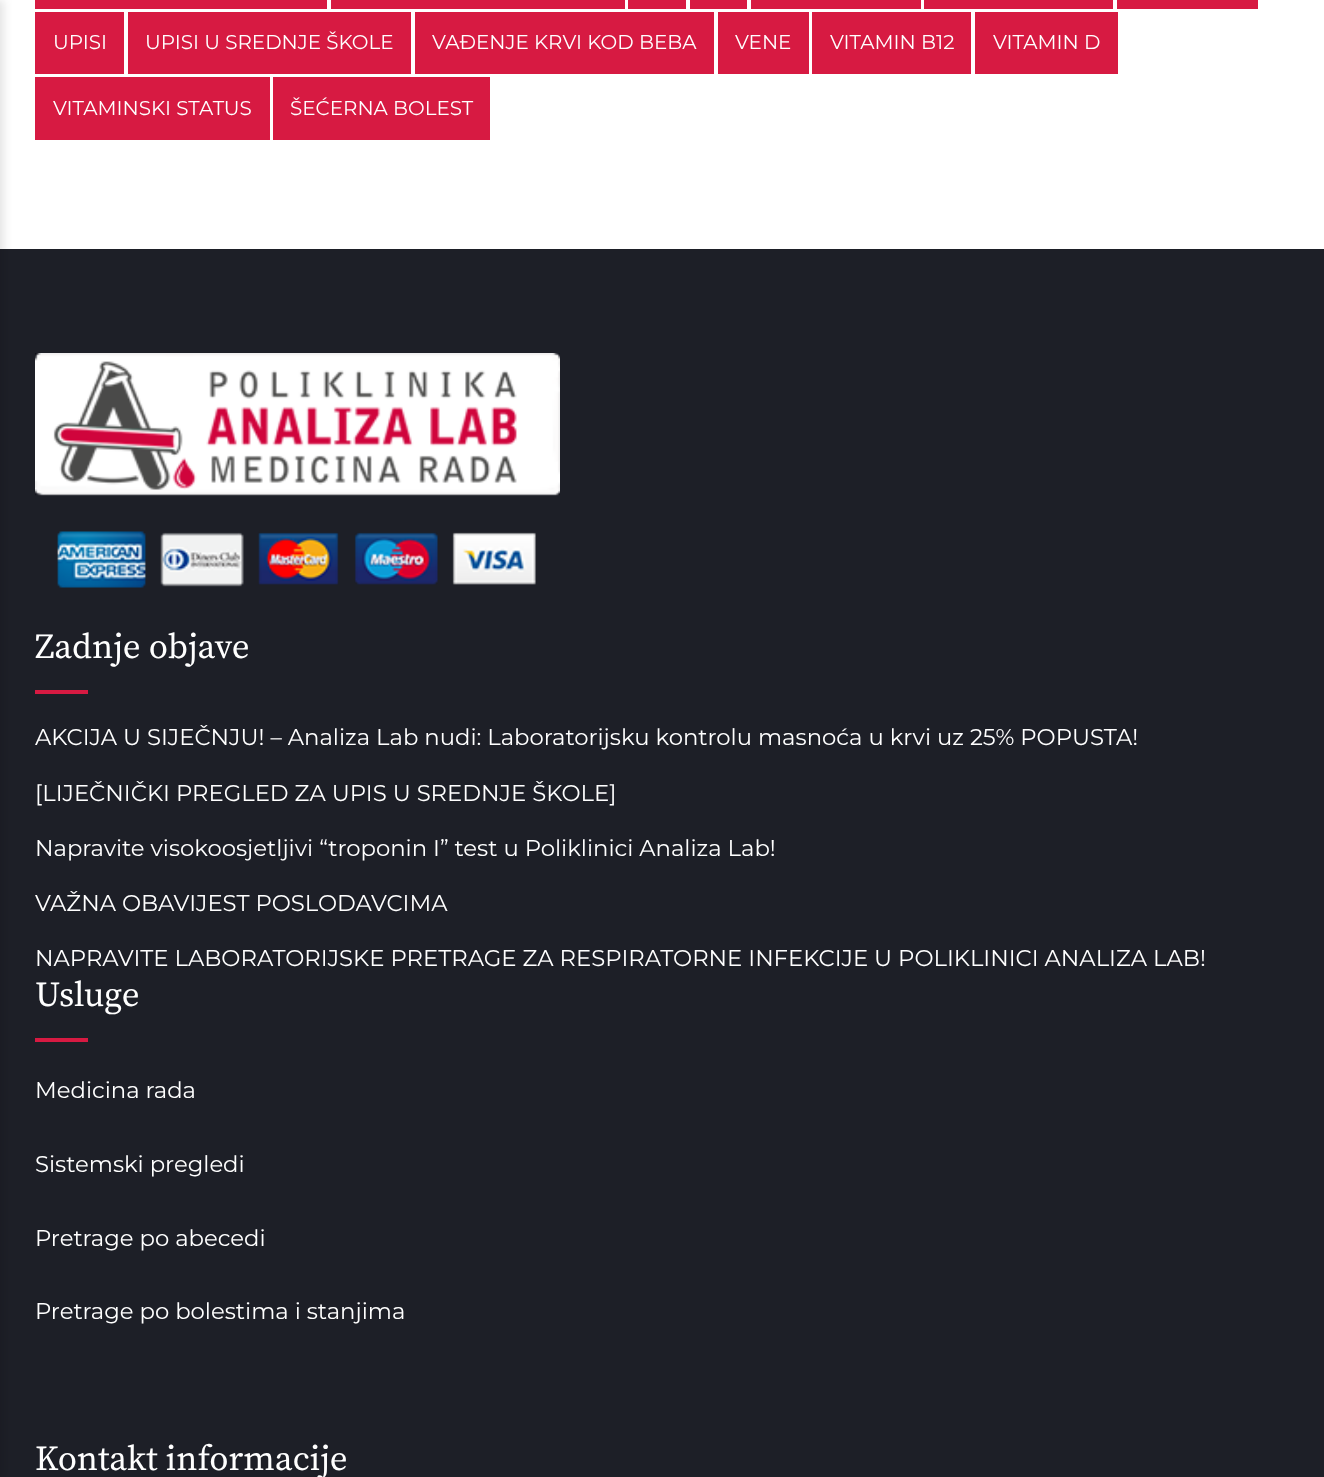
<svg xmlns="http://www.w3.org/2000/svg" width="1324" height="1477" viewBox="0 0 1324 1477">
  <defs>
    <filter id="blur1" x="-50%" y="-200%" width="200%" height="500%"><feGaussianBlur stdDeviation="4.5"/></filter>
  </defs>
  <rect width="100%" height="100%" fill="#ffffff"/>
  <rect x="0" y="249" width="1324" height="1228" fill="#1d1f27"/>
  <rect x="-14" y="0" width="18" height="1477" fill="#000000" fill-opacity="0.1" filter="url(#blur1)"/>
  <rect x="35" y="0" width="292" height="9" fill="#d71a42"/>
  <rect x="331" y="0" width="294" height="9" fill="#d71a42"/>
  <rect x="628" y="0" width="58" height="9" fill="#d71a42"/>
  <rect x="690" y="0" width="57" height="9" fill="#d71a42"/>
  <rect x="751" y="0" width="170" height="9" fill="#d71a42"/>
  <rect x="924" y="0" width="189" height="9" fill="#d71a42"/>
  <rect x="1117" y="0" width="141" height="9" fill="#d71a42"/>
  <rect x="35" y="12" width="89" height="62" fill="#d71a42"/>
  <text x="53" y="49" font-family="Montserrat" font-size="19.9" fill="#ffffff">UPISI</text>
  <rect x="128" y="12" width="283" height="62" fill="#d71a42"/>
  <text x="145" y="49" font-family="Montserrat" font-size="19.9" fill="#ffffff">UPISI U SREDNJE ŠKOLE</text>
  <rect x="415" y="12" width="299" height="62" fill="#d71a42"/>
  <text x="432" y="49" font-family="Montserrat" font-size="19.9" fill="#ffffff">VAĐENJE KRVI KOD BEBA</text>
  <rect x="718" y="12" width="91" height="62" fill="#d71a42"/>
  <text x="735" y="49" font-family="Montserrat" font-size="19.9" fill="#ffffff">VENE</text>
  <rect x="812" y="12" width="159" height="62" fill="#d71a42"/>
  <text x="830" y="49" font-family="Montserrat" font-size="19.9" fill="#ffffff">VITAMIN B12</text>
  <rect x="975" y="12" width="143" height="62" fill="#d71a42"/>
  <text x="993" y="49" font-family="Montserrat" font-size="19.9" fill="#ffffff">VITAMIN D</text>
  <rect x="35" y="77" width="235" height="63" fill="#d71a42"/>
  <text x="53" y="115" font-family="Montserrat" font-size="19.9" fill="#ffffff">VITAMINSKI STATUS</text>
  <rect x="273" y="77" width="217" height="63" fill="#d71a42"/>
  <text x="290" y="115" font-family="Montserrat" font-size="19.9" fill="#ffffff">ŠEĆERNA BOLEST</text>
  <image x="35" y="353" width="525" height="235" href="img1.png"/>
  <text x="35" y="658" font-family="Source Serif Pro" font-size="35" fill="#ffffff">Zadnje objave</text>
  <rect x="35" y="690" width="53" height="4" fill="#d71a42"/>
  <text x="35" y="745" font-family="Montserrat" font-size="22.75" fill="#ffffff">AKCIJA U SIJEČNJU! – Analiza Lab nudi: Laboratorijsku kontrolu masnoća u krvi uz 25% POPUSTA!</text>
  <text x="35" y="801" font-family="Montserrat" font-size="22.75" fill="#ffffff">[LIJEČNIČKI PREGLED ZA UPIS U SREDNJE ŠKOLE]</text>
  <text x="35" y="856" font-family="Montserrat" font-size="22.75" fill="#ffffff">Napravite visokoosjetljivi “troponin I” test u Poliklinici Analiza Lab!</text>
  <text x="35" y="911" font-family="Montserrat" font-size="22.75" fill="#ffffff">VAŽNA OBAVIJEST POSLODAVCIMA</text>
  <text x="35" y="966" font-family="Montserrat" font-size="22.75" fill="#ffffff">NAPRAVITE LABORATORIJSKE PRETRAGE ZA RESPIRATORNE INFEKCIJE U POLIKLINICI ANALIZA LAB!</text>
  <text x="35" y="1006" font-family="Source Serif Pro" font-size="35" fill="#ffffff">Usluge</text>
  <rect x="35" y="1038" width="53" height="4" fill="#d71a42"/>
  <text x="35" y="1098" font-family="Montserrat" font-size="22.75" fill="#ffffff">Medicina rada</text>
  <text x="35" y="1172" font-family="Montserrat" font-size="22.75" fill="#ffffff">Sistemski pregledi</text>
  <text x="35" y="1246" font-family="Montserrat" font-size="22.75" fill="#ffffff">Pretrage po abecedi</text>
  <text x="35" y="1319" font-family="Montserrat" font-size="22.75" fill="#ffffff">Pretrage po bolestima i stanjima</text>
  <text x="35" y="1470" font-family="Source Serif Pro" font-size="35" fill="#ffffff">Kontakt informacije</text>
</svg>
